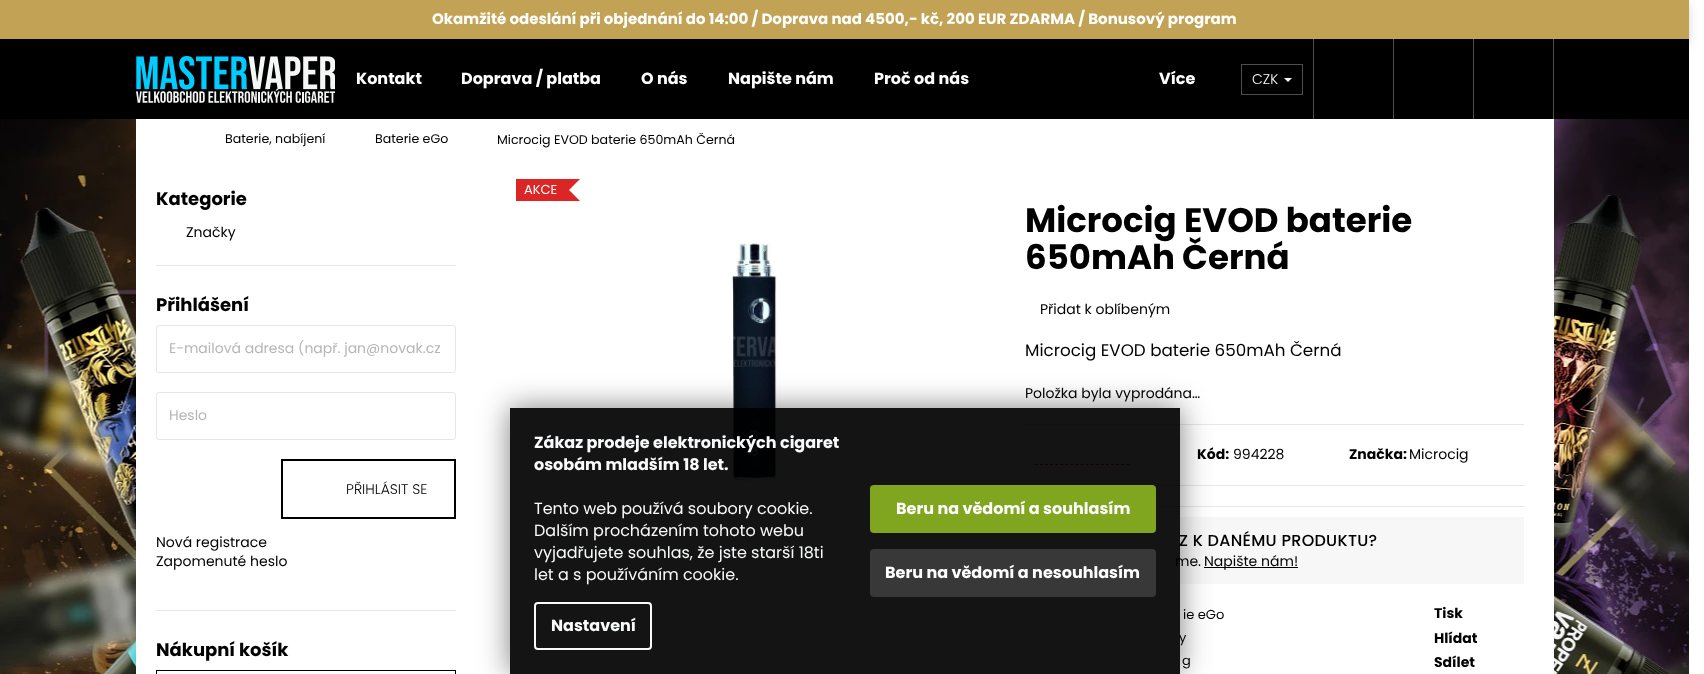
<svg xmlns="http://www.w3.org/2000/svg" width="1704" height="674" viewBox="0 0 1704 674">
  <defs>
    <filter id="blur1" x="-50%" y="-200%" width="200%" height="500%"><feGaussianBlur stdDeviation="5"/></filter>
    <clipPath id="clip1"><path d="M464 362H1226V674H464ZM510 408H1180V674H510Z" clip-rule="evenodd"/></clipPath>
    <filter id="blur2" x="-50%" y="-200%" width="200%" height="500%"><feGaussianBlur stdDeviation="15"/></filter>
  </defs>
  <rect width="100%" height="100%" fill="#ffffff"/>
  <image x="0" y="119" width="1689" height="555" href="img1.png"/>
  <rect x="0" y="5" width="1689" height="39" fill="#000000" fill-opacity="0.16" filter="url(#blur1)"/>
  <rect x="0" y="0" width="1689" height="39" fill="#c2a355"/>
  <text x="432" y="24" font-family="Poppins" font-size="15" font-weight="bold" fill="#ffffff">Okamžité odeslání při objednání do 14:00 / Doprava nad 4500,- kč, 200 EUR ZDARMA / Bonusový program</text>
  <rect x="0" y="39" width="1689" height="80" fill="#000000"/>
  <image x="136" y="56" width="199" height="47" href="img2.png"/>
  <text x="356" y="84" font-family="Poppins" font-size="16" font-weight="bold" fill="#ffffff">Kontakt</text>
  <text x="461" y="84" font-family="Poppins" font-size="16" font-weight="bold" fill="#ffffff">Doprava / platba</text>
  <text x="641" y="84" font-family="Poppins" font-size="16" font-weight="bold" fill="#ffffff">O nás</text>
  <text x="728" y="84" font-family="Poppins" font-size="16" font-weight="bold" fill="#ffffff">Napište nám</text>
  <text x="874" y="84" font-family="Poppins" font-size="16" font-weight="bold" fill="#ffffff">Proč od nás</text>
  <text x="1159" y="84" font-family="Poppins" font-size="16" font-weight="bold" fill="#ffffff">Více</text>
  <rect x="1553" y="39" width="1" height="80" fill="#4d4d4d"/>
  <rect x="1241.5" y="64.5" width="61" height="30" fill="none" stroke="#4d4d4d"/>
  <text x="1252" y="84" font-family="Poppins" font-size="14" font-weight="300" fill="#ffffff">CZK</text>
  <path d="M1284 78H1292L1288 82Z" fill="#ffffff"/>
  <rect x="1313" y="39" width="1" height="80" fill="#4d4d4d"/>
  <rect x="1393" y="39" width="1" height="80" fill="#4d4d4d"/>
  <rect x="1473" y="39" width="1" height="80" fill="#4d4d4d"/>
  <rect x="136" y="119" width="1418" height="555" fill="#ffffff"/>
  <text x="225" y="143" font-family="Poppins" font-size="12.6" fill="#000000">Baterie, nabíjení</text>
  <text x="375" y="143" font-family="Poppins" font-size="12.6" fill="#000000">Baterie eGo</text>
  <text x="497" y="144" font-family="Poppins" font-size="12.6" fill="#000000">Microcig EVOD baterie 650mAh Černá</text>
  <text x="156" y="205" font-family="Poppins" font-size="18" font-weight="bold" fill="#000000">Kategorie</text>
  <text x="186" y="237" font-family="Poppins" font-size="14" fill="#000000">Značky</text>
  <rect x="156" y="265" width="300" height="1" fill="#e6e6e6"/>
  <text x="156" y="311" font-family="Poppins" font-size="18" font-weight="bold" fill="#000000">Přihlášení</text>
  <rect x="156.5" y="325.5" width="299" height="47" rx="2.5" fill="none" stroke="#e6e6e6"/>
  <text x="169" y="353" font-family="Poppins" font-size="14" fill="#b6b6b6">E-mailová adresa (např. jan@novak.cz</text>
  <rect x="156.5" y="392.5" width="299" height="47" rx="2.5" fill="none" stroke="#e6e6e6"/>
  <text x="169" y="420" font-family="Poppins" font-size="14" fill="#b6b6b6">Heslo</text>
  <rect x="282" y="460" width="173" height="58" fill="none" stroke="#000000" stroke-width="2"/>
  <text x="346" y="494" font-family="Poppins" font-size="14" font-weight="300" fill="#000000">PŘIHLÁSIT SE</text>
  <text x="156" y="547" font-family="Poppins" font-size="14" fill="#000000">Nová registrace</text>
  <text x="156" y="566" font-family="Poppins" font-size="14" fill="#000000">Zapomenuté heslo</text>
  <rect x="156" y="610" width="300" height="1" fill="#e6e6e6"/>
  <text x="156" y="656" font-family="Poppins" font-size="18" font-weight="bold" fill="#000000">Nákupní košík</text>
  <rect x="156.5" y="670.5" width="299" height="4" fill="none" stroke="#000000"/>
  <rect x="516" y="179" width="52" height="22" fill="#dc2626"/>
  <text x="524" y="194" font-family="Poppins" font-size="13" fill="#ffffff">AKCE</text>
  <path d="M556 189H568L580 201H568Z" fill="#dc2626"/>
  <path d="M568 179H580L568 191H556Z" fill="#dc2626"/>
  <image x="731" y="243" width="47" height="239" href="img3.png"/>
  <text x="1025" y="232" font-family="Poppins" font-size="34" font-weight="bold" fill="#000000">Microcig EVOD baterie</text>
  <text x="1025" y="269" font-family="Poppins" font-size="34" font-weight="bold" fill="#000000">650mAh Černá</text>
  <text x="1040" y="314" font-family="Poppins" font-size="14" fill="#000000">Přidat k oblíbeným</text>
  <text x="1025" y="356" font-family="Poppins" font-size="16.75" fill="#000000">Microcig EVOD baterie 650mAh Černá</text>
  <text x="1025" y="398" font-family="Poppins" font-size="14" fill="#000000">Položka byla vyprodána…</text>
  <rect x="1025" y="424" width="499" height="1" fill="#e7e7e7"/>
  <rect x="1152" y="485" width="372" height="1" fill="#e7e7e7"/>
  <text x="1197" y="459" font-family="Poppins" font-size="14" font-weight="bold" fill="#000000">Kód:</text>
  <text x="1233" y="459" font-family="Poppins" font-size="14" fill="#000000">994228</text>
  <text x="1349" y="459" font-family="Poppins" font-size="14" font-weight="bold" fill="#000000">Značka:</text>
  <text x="1409" y="459" font-family="Poppins" font-size="14" fill="#000000">Microcig</text>
  <path d="M1035 464.5H1129" fill="none" stroke="#f20202" stroke-dasharray="3 2.06"/>
  <rect x="1156" y="506" width="368" height="1" fill="#e7e7e7"/>
  <rect x="1025" y="517" width="499" height="67" fill="#f7f7f7"/>
  <text x="1179" y="546" font-family="Poppins" font-size="16" font-weight="500" letter-spacing="0.3" fill="#000000">Z K DANÉMU PRODUKTU?</text>
  <text x="1175" y="566" font-family="Poppins" font-size="14" fill="#000000">me.</text>
  <rect x="1204" y="567" width="94" height="1" fill="#000000"/>
  <text x="1204" y="566" font-family="Poppins" font-size="14" fill="#000000">Napište nám!</text>
  <text x="1183" y="619" font-family="Poppins" font-size="13" fill="#000000">ie eGo</text>
  <text x="1179" y="642" font-family="Poppins" font-size="13" fill="#000000">y</text>
  <text x="1182" y="665" font-family="Poppins" font-size="13" fill="#000000">g</text>
  <text x="1434" y="618" font-family="Poppins" font-size="14" font-weight="bold" fill="#000000">Tisk</text>
  <text x="1434" y="643" font-family="Poppins" font-size="14" font-weight="bold" fill="#000000">Hlídat</text>
  <text x="1434" y="667" font-family="Poppins" font-size="14" font-weight="bold" fill="#000000">Sdílet</text>
  <g clip-path="url(#clip1)">
    <rect x="510" y="408" width="670" height="266" fill="#000000" fill-opacity="0.5" filter="url(#blur2)"/>
  </g>
  <rect x="510" y="408" width="670" height="266" fill="#000000" fill-opacity="0.92"/>
  <text x="534" y="448" font-family="Poppins" font-size="16" font-weight="bold" fill="#f8fafb">Zákaz prodeje elektronických cigaret</text>
  <text x="534" y="470" font-family="Poppins" font-size="16" font-weight="bold" fill="#f8fafb">osobám mladším 18 let.</text>
  <text x="534" y="514" font-family="Poppins" font-size="16" fill="#f8fafb">Tento web používá soubory cookie.</text>
  <text x="534" y="536" font-family="Poppins" font-size="16" fill="#f8fafb">Dalším procházením tohoto webu</text>
  <text x="534" y="558" font-family="Poppins" font-size="16" fill="#f8fafb">vyjadřujete souhlas, že jste starší 18ti</text>
  <text x="534" y="580" font-family="Poppins" font-size="16" fill="#f8fafb">let a s používáním cookie.</text>
  <rect x="535" y="603" width="116" height="46" rx="3" fill="none" stroke="#f8fafb" stroke-width="2"/>
  <text x="551" y="631" font-family="Poppins" font-size="16" font-weight="bold" fill="#f8fafb">Nastavení</text>
  <rect x="870" y="485" width="286" height="48" rx="4" fill="#80a51f"/>
  <text x="896" y="514" font-family="Poppins" font-size="16" font-weight="bold" fill="#ffffff">Beru na vědomí a souhlasím</text>
  <rect x="870" y="549" width="286" height="48" rx="4" fill="#383838"/>
  <text x="885" y="578" font-family="Poppins" font-size="16" font-weight="bold" fill="#ffffff">Beru na vědomí a nesouhlasím</text>
</svg>
